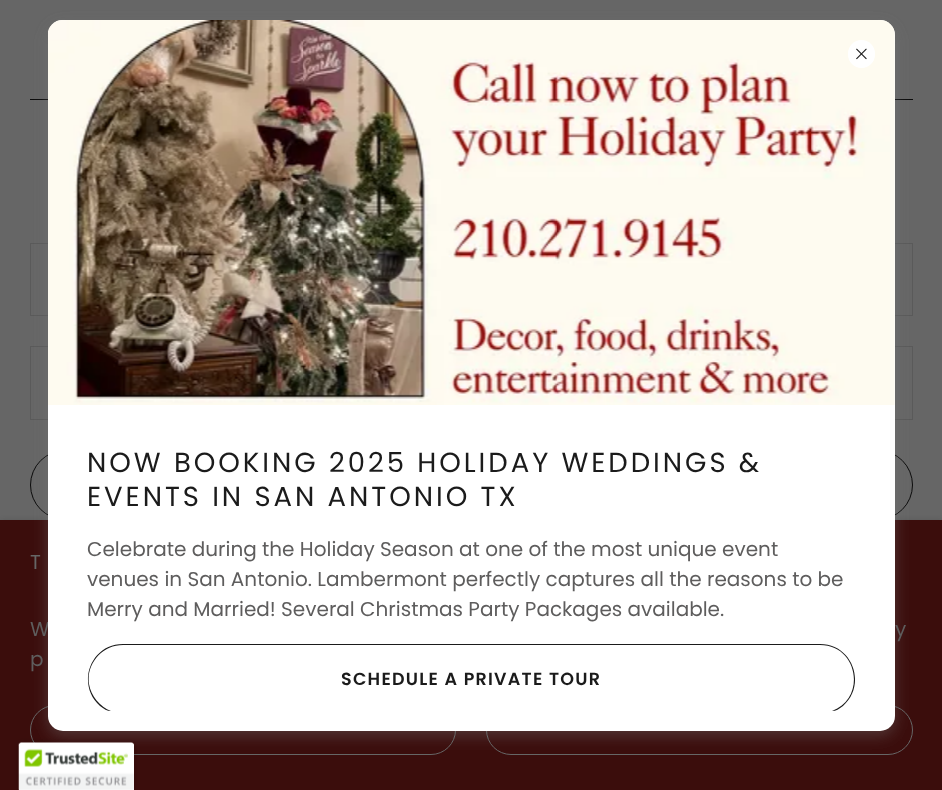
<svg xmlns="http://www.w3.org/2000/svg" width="942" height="790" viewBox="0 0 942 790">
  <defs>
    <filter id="blur1" x="-50%" y="-200%" width="200%" height="500%"><feGaussianBlur stdDeviation="4"/></filter>
    <filter id="blur2" x="-50%" y="-200%" width="200%" height="500%"><feGaussianBlur stdDeviation="7.5"/></filter>
    <filter id="blur3" x="-50%" y="-200%" width="200%" height="500%"><feGaussianBlur stdDeviation="3"/></filter>
  </defs>
  <rect width="100%" height="100%" fill="#666666"/>
  <rect x="30" y="99" width="18" height="1" fill="#0b0b0b"/>
  <rect x="895" y="99" width="18" height="1" fill="#0b0b0b"/>
  <rect x="30.5" y="243.5" width="882" height="72" fill="none" stroke="#5a5a5a"/>
  <rect x="30.5" y="346.5" width="882" height="73" fill="none" stroke="#5a5a5a"/>
  <rect x="30.5" y="450.5" width="882" height="69" rx="34.5" fill="none" stroke="#0b0b0b"/>
  <rect x="0" y="523" width="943" height="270" fill="#000000" fill-opacity="0.3" filter="url(#blur1)"/>
  <rect x="0" y="520" width="942" height="270" fill="#3b0d0c"/>
  <rect x="30.5" y="705.5" width="425" height="49" rx="24.5" fill="none" stroke="#666666"/>
  <rect x="486.5" y="705.5" width="426" height="49" rx="24.5" fill="none" stroke="#666666"/>
  <rect x="48" y="25" width="847" height="711" rx="15" fill="#757575" fill-opacity="0.4" filter="url(#blur2)"/>
  <text x="30" y="636" font-family="Poppins" font-size="20" fill="#5e5d5d">W</text>
  <rect x="48" y="20" width="847" height="711" rx="15" fill="#ffffff"/>
  <image x="48" y="20" width="847" height="385" href="img2.png"/>
  <rect x="848" y="40" width="27" height="28" rx="13.5" fill="#ffffff"/>
  <image x="856" y="48" width="11" height="12" href="img1.png"/>
  <text x="87" y="472" font-family="Poppins" font-size="27.5" letter-spacing="2.95" fill="#1b1b1b">NOW BOOKING 2025 HOLIDAY WEDDINGS &amp;</text>
  <text x="87" y="506" font-family="Poppins" font-size="27.5" letter-spacing="2.95" fill="#1b1b1b">EVENTS IN SAN ANTONIO TX</text>
  <text x="87" y="556" font-family="Poppins" font-size="20" fill="#5e5d5d">Celebrate during the Holiday Season at one of the most unique event</text>
  <text x="87" y="586" font-family="Poppins" font-size="20" fill="#5e5d5d">venues in San Antonio. Lambermont perfectly captures all the reasons to be</text>
  <text x="87" y="616" font-family="Poppins" font-size="20" fill="#5e5d5d">Merry and Married! Several Christmas Party Packages available.</text>
  <path d="M123 644C90 644 76 685 100 706C104 709 107 711 111 711C100 707 91 696 89 684C86 664 102 645 123 645H820C858 645 867 698 832 711C836 711 839 709 843 706C867 685 853 644 820 644Z" fill="#1b1b1b"/>
  <text x="341" y="685" font-family="Poppins" font-size="17.5" font-weight="600" letter-spacing="1.25" fill="#1b1b1b">SCHEDULE A PRIVATE TOUR</text>
  <text x="30" y="569" font-family="Poppins" font-size="20" letter-spacing="2" fill="#666666">T</text>
  <text x="895" y="636" font-family="Poppins" font-size="20" fill="#5e5d5d">y</text>
  <text x="30" y="666" font-family="Poppins" font-size="20" fill="#5e5d5d">p</text>
  <rect x="19" y="743" width="115" height="47" rx="2.5" fill="#000000" fill-opacity="0.2" filter="url(#blur3)"/>
  <path d="M21.5 743H131.5C133 743 134 744 134 745.5V790H19V745.5C19 744 20 743 21.5 743Z" fill="#ffffff"/>
  <image x="18" y="742" width="116" height="48" href="img3.png"/>
</svg>
